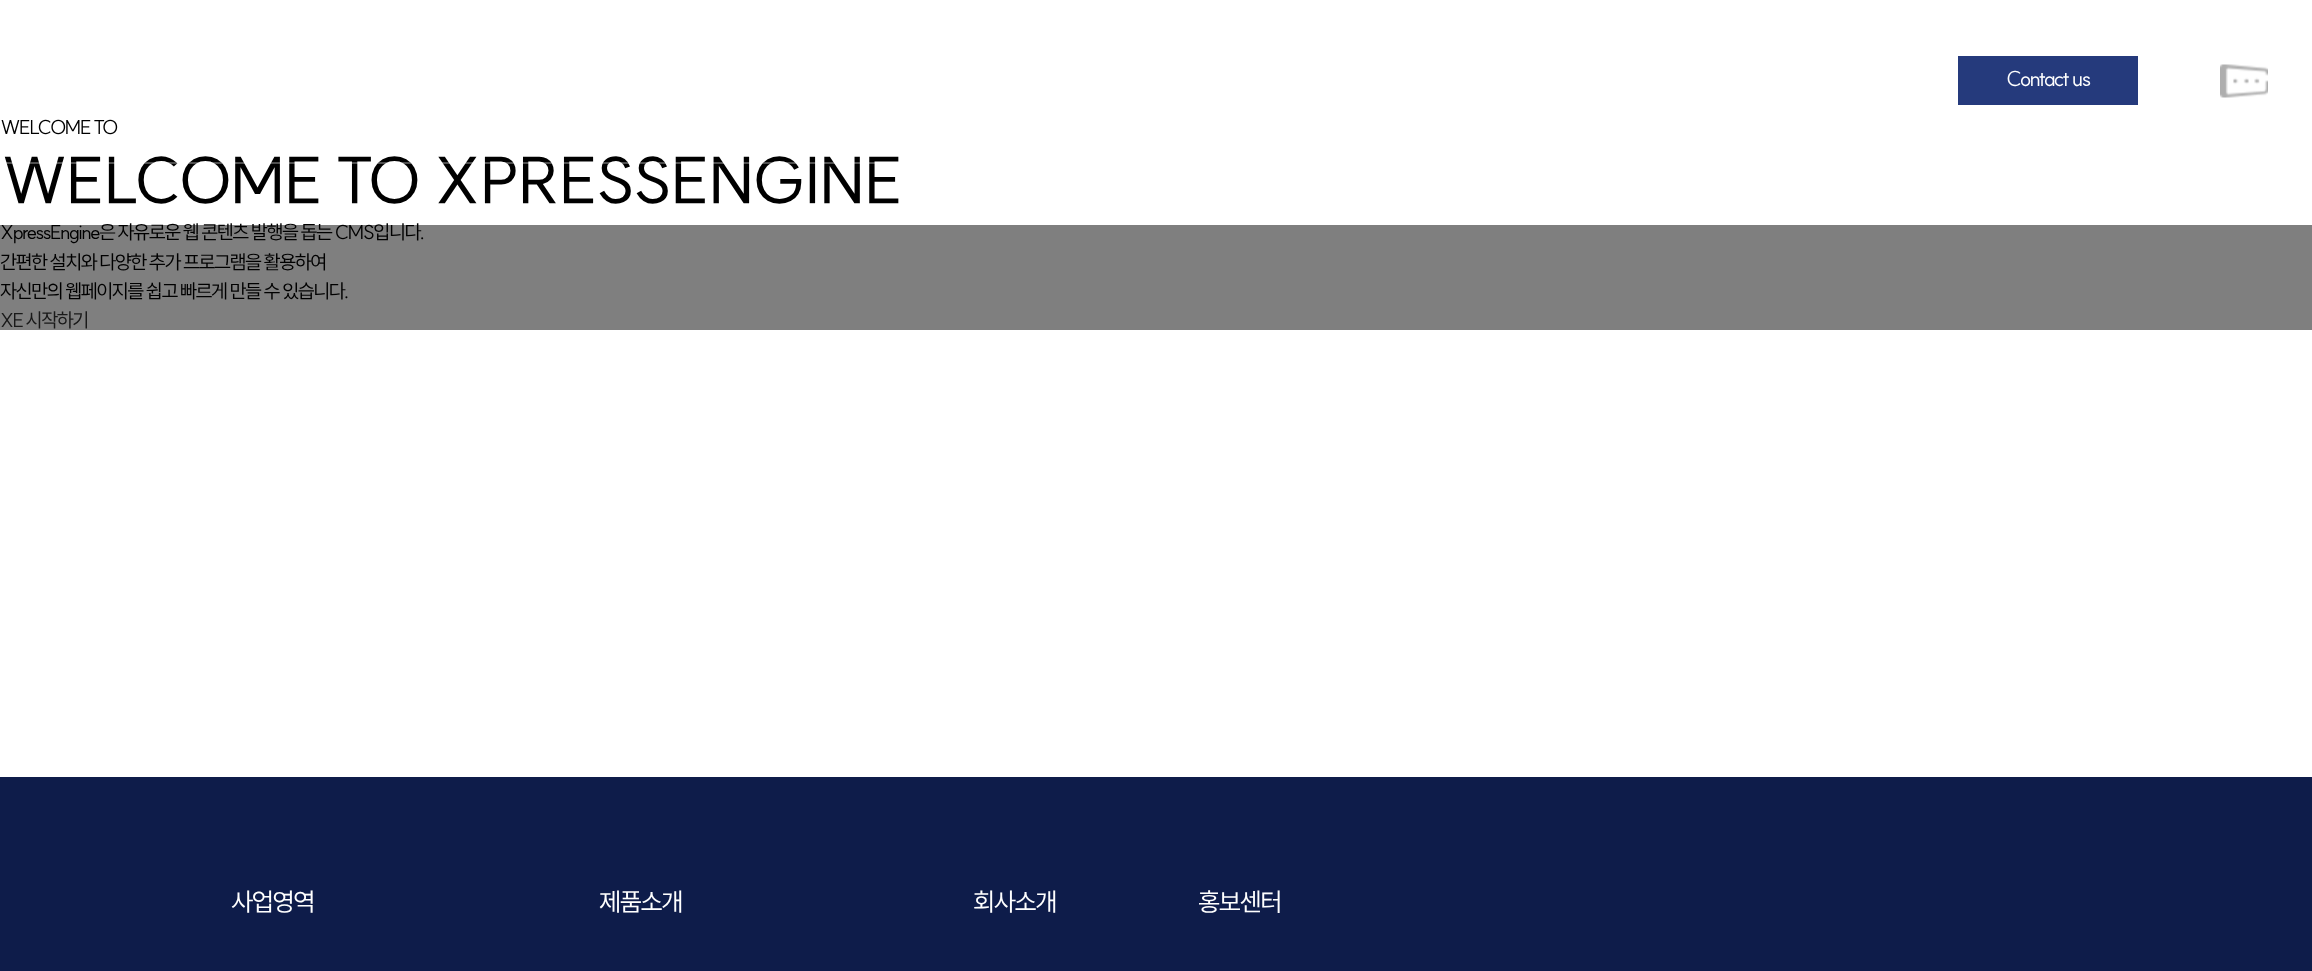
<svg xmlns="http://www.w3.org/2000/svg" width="2312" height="971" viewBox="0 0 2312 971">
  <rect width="100%" height="100%" fill="#ffffff"/>
  <text x="0" y="203" font-family="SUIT" font-size="63.75" font-weight="500" letter-spacing="-1.5" fill="#000000">WELCOME TO XPRESSENGINE</text>
  <rect x="0" y="162" width="875" height="2" fill="#ffffff" fill-opacity="0.31"/>
  <rect x="1958" y="56" width="180" height="49" fill="#253a7c"/>
  <text x="2006" y="86" font-family="SUIT" font-size="21" letter-spacing="-1.5" fill="#ffffff">Contact us</text>
  <image x="2220" y="64" width="48" height="34" href="img1.png"/>
  <text x="0" y="134" font-family="SUIT" font-size="19.5" letter-spacing="-1.5" fill="#000000">WELCOME TO</text>
  <text x="0" y="239" font-family="SUIT" font-size="19.5" letter-spacing="-1.5" fill="#000000">XpressEngine은 자유로운 웹 콘텐츠 발행을 돕는 CMS입니다.</text>
  <text x="0" y="269" font-family="SUIT" font-size="19.5" letter-spacing="-1.5" fill="#000000">간편한 설치와 다양한 추가 프로그램을 활용하여</text>
  <text x="0" y="298" font-family="SUIT" font-size="19.5" letter-spacing="-1.5" fill="#000000">자신만의 웹페이지를 쉽고 빠르게 만들 수 있습니다.</text>
  <text x="0" y="327" font-family="SUIT" font-size="19.5" letter-spacing="-1.5" fill="#333333">XE 시작하기</text>
  <rect x="0" y="225" width="2312" height="105" fill="#000000" fill-opacity="0.5"/>
  <rect x="0" y="777" width="2312" height="194" fill="#0e1c4a"/>
  <text x="231" y="911" font-family="SUIT" font-size="25.5" letter-spacing="-1.5" fill="#ffffff">사업영역</text>
  <text x="599" y="911" font-family="SUIT" font-size="25.5" letter-spacing="-1.5" fill="#ffffff">제품소개</text>
  <text x="973" y="911" font-family="SUIT" font-size="25.5" letter-spacing="-1.5" fill="#ffffff">회사소개</text>
  <text x="1198" y="911" font-family="SUIT" font-size="25.5" letter-spacing="-1.5" fill="#ffffff">홍보센터</text>
</svg>
